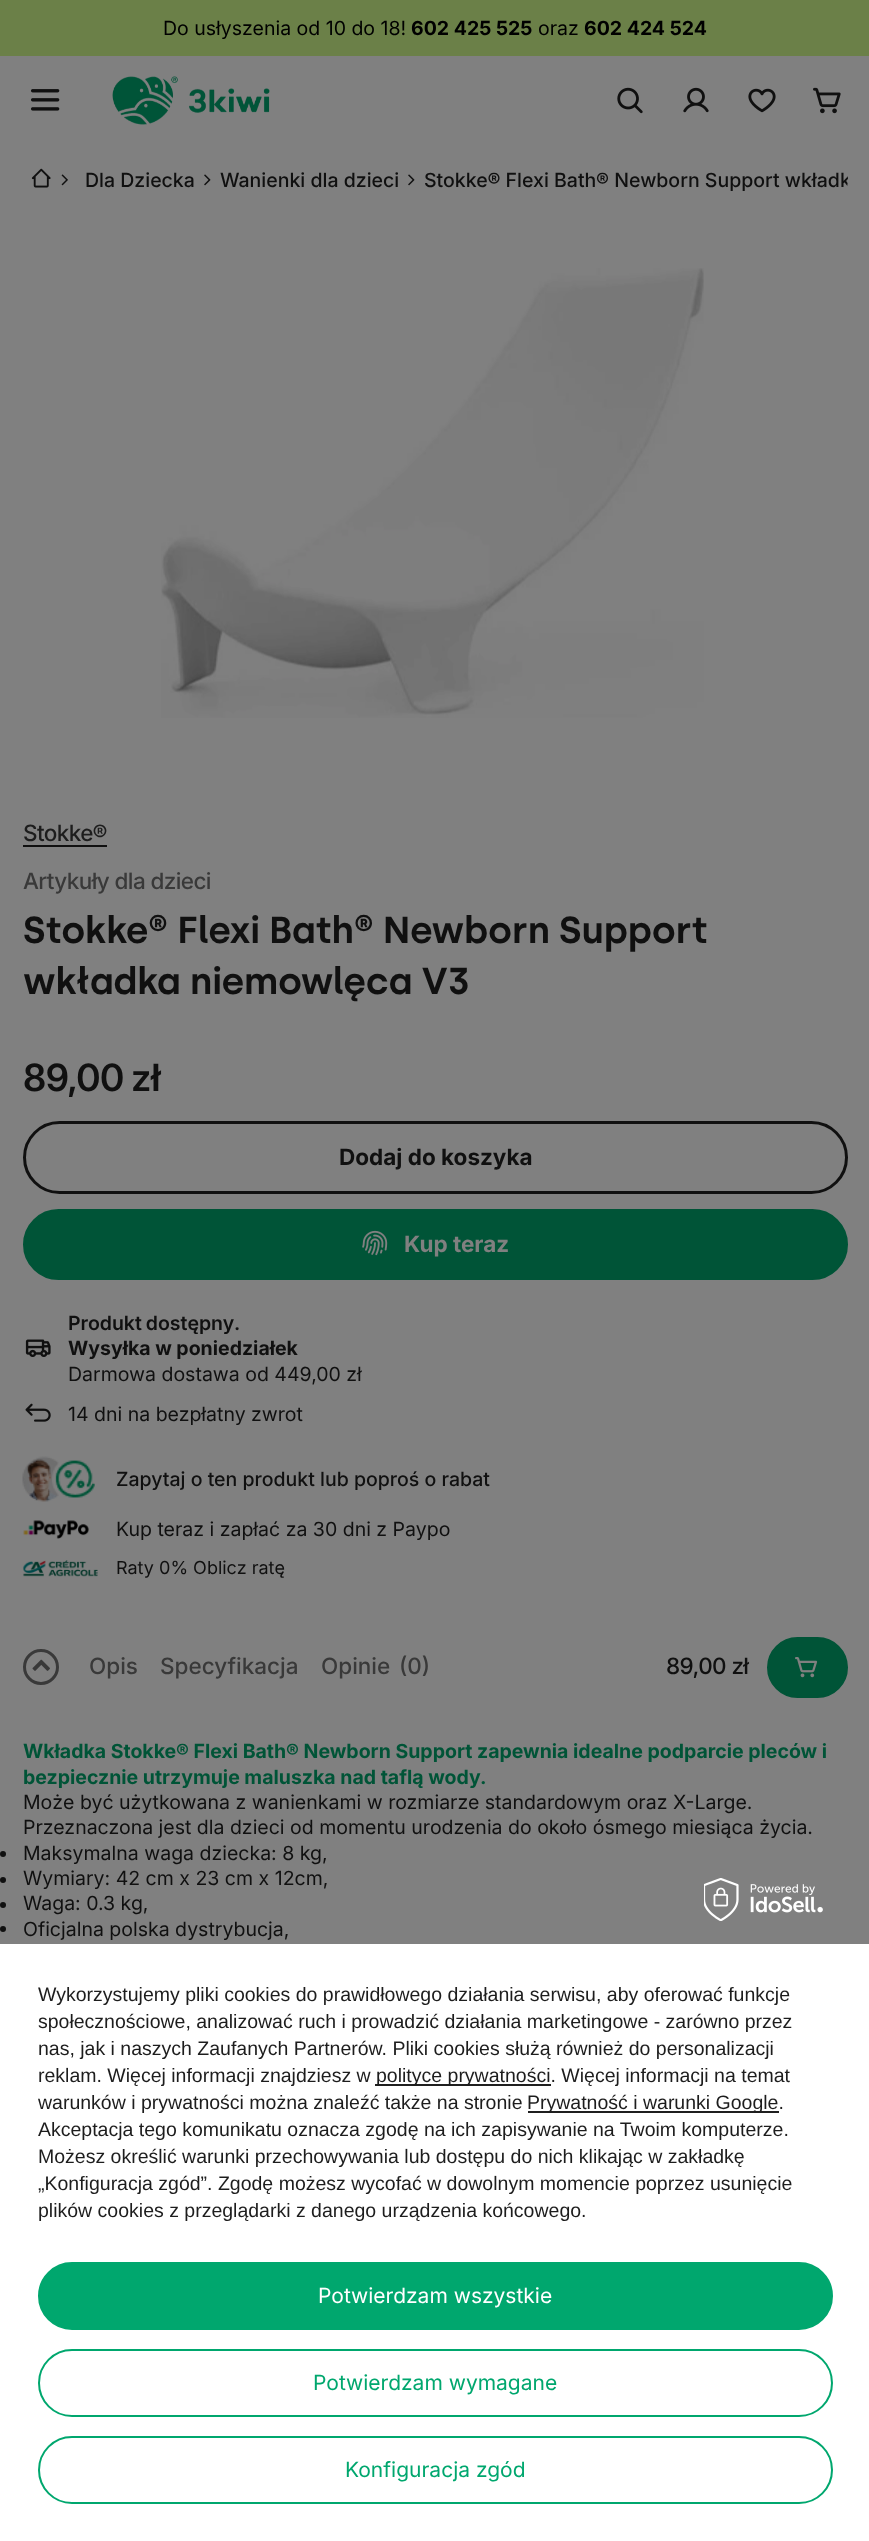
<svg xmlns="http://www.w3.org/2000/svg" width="869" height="2541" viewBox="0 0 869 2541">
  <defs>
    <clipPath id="clip1"><rect x="30" y="146" width="818" height="66" rx="33"/></clipPath>
  </defs>
  <rect width="100%" height="100%" fill="#808080"/>
  <rect x="0" y="0" width="869" height="56" fill="#6b8048"/>
  <text x="163" y="35" font-family="Inter" font-size="19.5" fill="#000000">Do usłyszenia od 10 do 18!</text>
  <text x="411" y="35" font-family="Inter" font-size="19.5" font-weight="bold" fill="#000000">602 425 525</text>
  <text x="538" y="35" font-family="Inter" font-size="19.5" fill="#000000">oraz</text>
  <text x="584" y="35" font-family="Inter" font-size="19.5" font-weight="bold" fill="#000000">602 424 524</text>
  <image x="31" y="89" width="29" height="22" href="img1.png"/>
  <image x="112" y="76" width="158" height="49" href="img2.png"/>
  <image x="617" y="87" width="26" height="27" href="img3.png"/>
  <image x="683" y="87" width="26" height="26" href="img4.png"/>
  <image x="748" y="88" width="28" height="25" href="img5.png"/>
  <image x="813" y="87" width="28" height="27" href="img6.png"/>
  <image x="31" y="168" width="20" height="20" href="img7.png"/>
  <image x="61" y="174" width="7" height="12" href="img8.png"/>
  <text x="85" y="187" font-family="Inter" font-size="19.5" font-weight="500" fill="#101010">Dla Dziecka</text>
  <image x="204" y="174" width="7" height="12" href="img9.png"/>
  <text x="220" y="187" font-family="Inter" font-size="19.5" font-weight="500" fill="#101010">Wanienki dla dzieci</text>
  <image x="408" y="174" width="7" height="12" href="img9.png"/>
  <g clip-path="url(#clip1)">
    <text x="424" y="187" font-family="Inter" font-size="19.5" font-weight="500" fill="#101010">Stokke® Flexi Bath® Newborn Support wkładk</text>
  </g>
  <image x="161" y="268" width="543" height="450" href="img10.png"/>
  <text x="23" y="841" font-family="Inter" font-size="22.5" font-weight="500" letter-spacing="-0.6" fill="#1d1d1d">Stokke®</text>
  <rect x="23" y="845" width="84" height="2" fill="#101010"/>
  <text x="23" y="889" font-family="Inter" font-size="22.5" font-weight="500" letter-spacing="-0.6" fill="#393939">Artykuły dla dzieci</text>
  <text x="23" y="943" font-family="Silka" font-size="37.5" font-weight="600" letter-spacing="-0.4" fill="#101010">Stokke® Flexi Bath® Newborn Support</text>
  <text x="23" y="994" font-family="Silka" font-size="37.5" font-weight="600" letter-spacing="-0.4" fill="#101010">wkładka niemowlęca V3</text>
  <text x="23" y="1091" word-spacing="-1" font-family="Inter" font-size="37.5" font-weight="600" letter-spacing="-0.4" fill="#101010">89,00 z</text>
  <text x="151" y="1091" font-family="'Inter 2'" font-size="37.5" font-weight="600" letter-spacing="-0.4" fill="#101010">ł</text>
  <rect x="24.5" y="1122.5" width="822" height="70" rx="35" fill="none" stroke="#101010" stroke-width="3"/>
  <text x="339" y="1165" font-family="Inter" font-size="22.5" font-weight="bold" fill="#101010">Dodaj do koszyka</text>
  <rect x="24" y="1210" width="823" height="69" rx="34.5" fill="#005437" stroke="#005437" stroke-width="2"/>
  <image x="362" y="1230" width="26" height="26" href="img11.png"/>
  <text x="404" y="1252" font-family="Inter" font-size="22.5" font-weight="bold" fill="#808080">Kup teraz</text>
  <image x="25" y="1339" width="26" height="18" href="img12.png"/>
  <text x="68" y="1330" word-spacing="-1" font-family="'Inter 2'" font-size="19.5" font-weight="600" fill="#101010">Produkt dostępny</text>
  <text x="234" y="1330" font-family="'Inter 2'" font-size="19.5" font-weight="600" fill="#101010">.</text>
  <text x="68" y="1355" font-family="Inter" font-size="19.5" font-weight="bold" fill="#101010">Wysyłka w poniedziałek</text>
  <text x="68" y="1381" font-family="Inter" font-size="19.5" fill="#101010">Darmowa dostawa od 449,00 zł</text>
  <image x="25" y="1403" width="26" height="19" href="img13.png"/>
  <text x="68" y="1421" font-family="Inter" font-size="19.5" fill="#101010">14 dni na bezpłatny zwrot</text>
  <image x="22" y="1456" width="73" height="46" href="img14.png"/>
  <text x="116" y="1486" font-family="Inter" font-size="19.5" font-weight="500" fill="#101010">Zapytaj o ten produkt lub poproś o rabat</text>
  <image x="23" y="1520" width="67" height="19" href="img15.png"/>
  <text x="116" y="1536" font-family="Inter" font-size="19.5" fill="#101010">Kup teraz i zapłać za 30 dni z Paypo</text>
  <image x="22" y="1560" width="76" height="17" href="img16.png"/>
  <text x="116" y="1574" font-family="Inter" font-size="18" fill="#101010">Raty 0% Oblicz ratę</text>
  <circle cx="41" cy="1667" r="16.5" fill="none" stroke="#393939" stroke-width="3"/>
  <image x="32" y="1659" width="18" height="12" href="img17.png"/>
  <text x="89" y="1674" font-family="Inter" font-size="22.5" font-weight="500" fill="#393939">Opis</text>
  <text x="160" y="1674" font-family="Inter" font-size="22.5" font-weight="500" fill="#393939">Specyfikacja</text>
  <text x="321" y="1674" font-family="Inter" font-size="22.5" font-weight="500" fill="#393939">Opinie</text>
  <text x="399" y="1674" font-family="Inter" font-size="22.5" font-weight="500" fill="#393939">(0)</text>
  <text x="666" y="1674" font-family="Inter" font-size="22.5" font-weight="500" letter-spacing="-0.6" fill="#101010">89,00 zł</text>
  <rect x="768" y="1638" width="79" height="59" rx="29.5" fill="#005437" stroke="#005437" stroke-width="2"/>
  <image x="795" y="1657" width="23" height="21" href="img18.png"/>
  <text x="23" y="1758" font-family="Inter" font-size="19.5" font-weight="bold" fill="#005437">Wkładka Stokke® Flexi Bath® Newborn Support zapewnia idealne podparcie pleców i</text>
  <text x="23" y="1784" font-family="Inter" font-size="19.5" font-weight="bold" fill="#005437">bezpiecznie utrzymuje maluszka nad taflą wody.</text>
  <text x="23" y="1809" font-family="Inter" font-size="19.5" fill="#101010">Może być użytkowana z wanienkami w rozmiarze standardowym oraz X-Large.</text>
  <text x="23" y="1834" font-family="Inter" font-size="19.5" fill="#101010">Przeznaczona jest dla dzieci od momentu urodzenia do około ósmego miesiąca życia.</text>
  <circle cx="3" cy="1854" r="3" fill="#101010"/>
  <text x="23" y="1860" font-family="Inter" font-size="19.5" fill="#101010">Maksymalna waga dziecka: 8 kg,</text>
  <circle cx="3" cy="1880" r="3" fill="#101010"/>
  <text x="23" y="1885" font-family="Inter" font-size="19.5" fill="#101010">Wymiary: 42 cm x 23 cm x 12cm,</text>
  <circle cx="3" cy="1905" r="3" fill="#101010"/>
  <text x="23" y="1910" font-family="Inter" font-size="19.5" fill="#101010">Waga: 0.3 kg,</text>
  <circle cx="3" cy="1929" r="3" fill="#101010"/>
  <text x="23" y="1936" font-family="Inter" font-size="19.5" fill="#101010">Oficjalna polska dystrybucja,</text>
  <rect x="0" y="1944" width="869" height="597" fill="#ffffff"/>
  <image x="704" y="1878" width="119" height="43" href="img19.png"/>
  <text x="38" y="2001" font-family="Liberation Sans" font-size="19.5" fill="#1d1d1d">Wykorzystujemy pliki cookies do prawidłowego działania serwisu, aby oferować funkcje</text>
  <text x="38" y="2028" font-family="Liberation Sans" font-size="19.5" fill="#1d1d1d">społecznościowe, analizować ruch i prowadzić działania marketingowe - zarówno przez</text>
  <text x="38" y="2055" font-family="Liberation Sans" font-size="19.5" fill="#1d1d1d">nas, jak i naszych Zaufanych Partnerów. Pliki cookies służą również do personalizacji</text>
  <text x="38" y="2082" font-family="Liberation Sans" font-size="19.5" fill="#1d1d1d">reklam. Więcej informacji znajdziesz w</text>
  <rect x="375" y="2084" width="176" height="2" fill="#1f1f1f"/>
  <text x="376" y="2082" font-family="Liberation Sans" font-size="19.5" fill="#1d1d1d">polityce prywatności. Więcej informacji na temat</text>
  <text x="38" y="2109" font-family="Liberation Sans" font-size="19.5" fill="#1d1d1d">warunków i prywatności można znaleźć także na stronie</text>
  <rect x="528" y="2111" width="251" height="2" fill="#1f1f1f"/>
  <text x="527" y="2109" font-family="Liberation Sans" font-size="19.5" fill="#1d1d1d">Prywatność i warunki Google.</text>
  <text x="38" y="2136" font-family="Liberation Sans" font-size="19.5" fill="#1d1d1d">Akceptacja tego komunikatu oznacza zgodę na ich zapisywanie na Twoim komputerze.</text>
  <text x="38" y="2163" font-family="Liberation Sans" font-size="19.5" fill="#1d1d1d">Możesz określić warunki przechowywania lub dostępu do nich klikając w zakładkę</text>
  <text x="38" y="2190" font-family="Liberation Sans" font-size="19.5" fill="#1d1d1d">„Konfiguracja zgód”. Zgodę możesz wycofać w dowolnym momencie poprzez usunięcie</text>
  <text x="38" y="2217" font-family="Liberation Sans" font-size="19.5" fill="#1d1d1d">plików cookies z przeglądarki z danego urządzenia końcowego.</text>
  <rect x="39" y="2263" width="793" height="66" rx="33" fill="#00a76e" stroke="#00a76e" stroke-width="2"/>
  <text x="318" y="2303" font-family="Inter" font-size="21" fill="#ffffff">Potwierdzam wszystkie</text>
  <rect x="39" y="2350" width="793" height="66" rx="33" fill="none" stroke="#00a76e" stroke-width="2"/>
  <text x="313" y="2390" font-family="Inter" font-size="21" fill="#00a76e">Potwierdzam wymagane</text>
  <rect x="39" y="2437" width="793" height="66" rx="33" fill="none" stroke="#00a76e" stroke-width="2"/>
  <text x="345" y="2477" font-family="Inter" font-size="21" fill="#00a76e">Konfiguracja zgód</text>
</svg>
